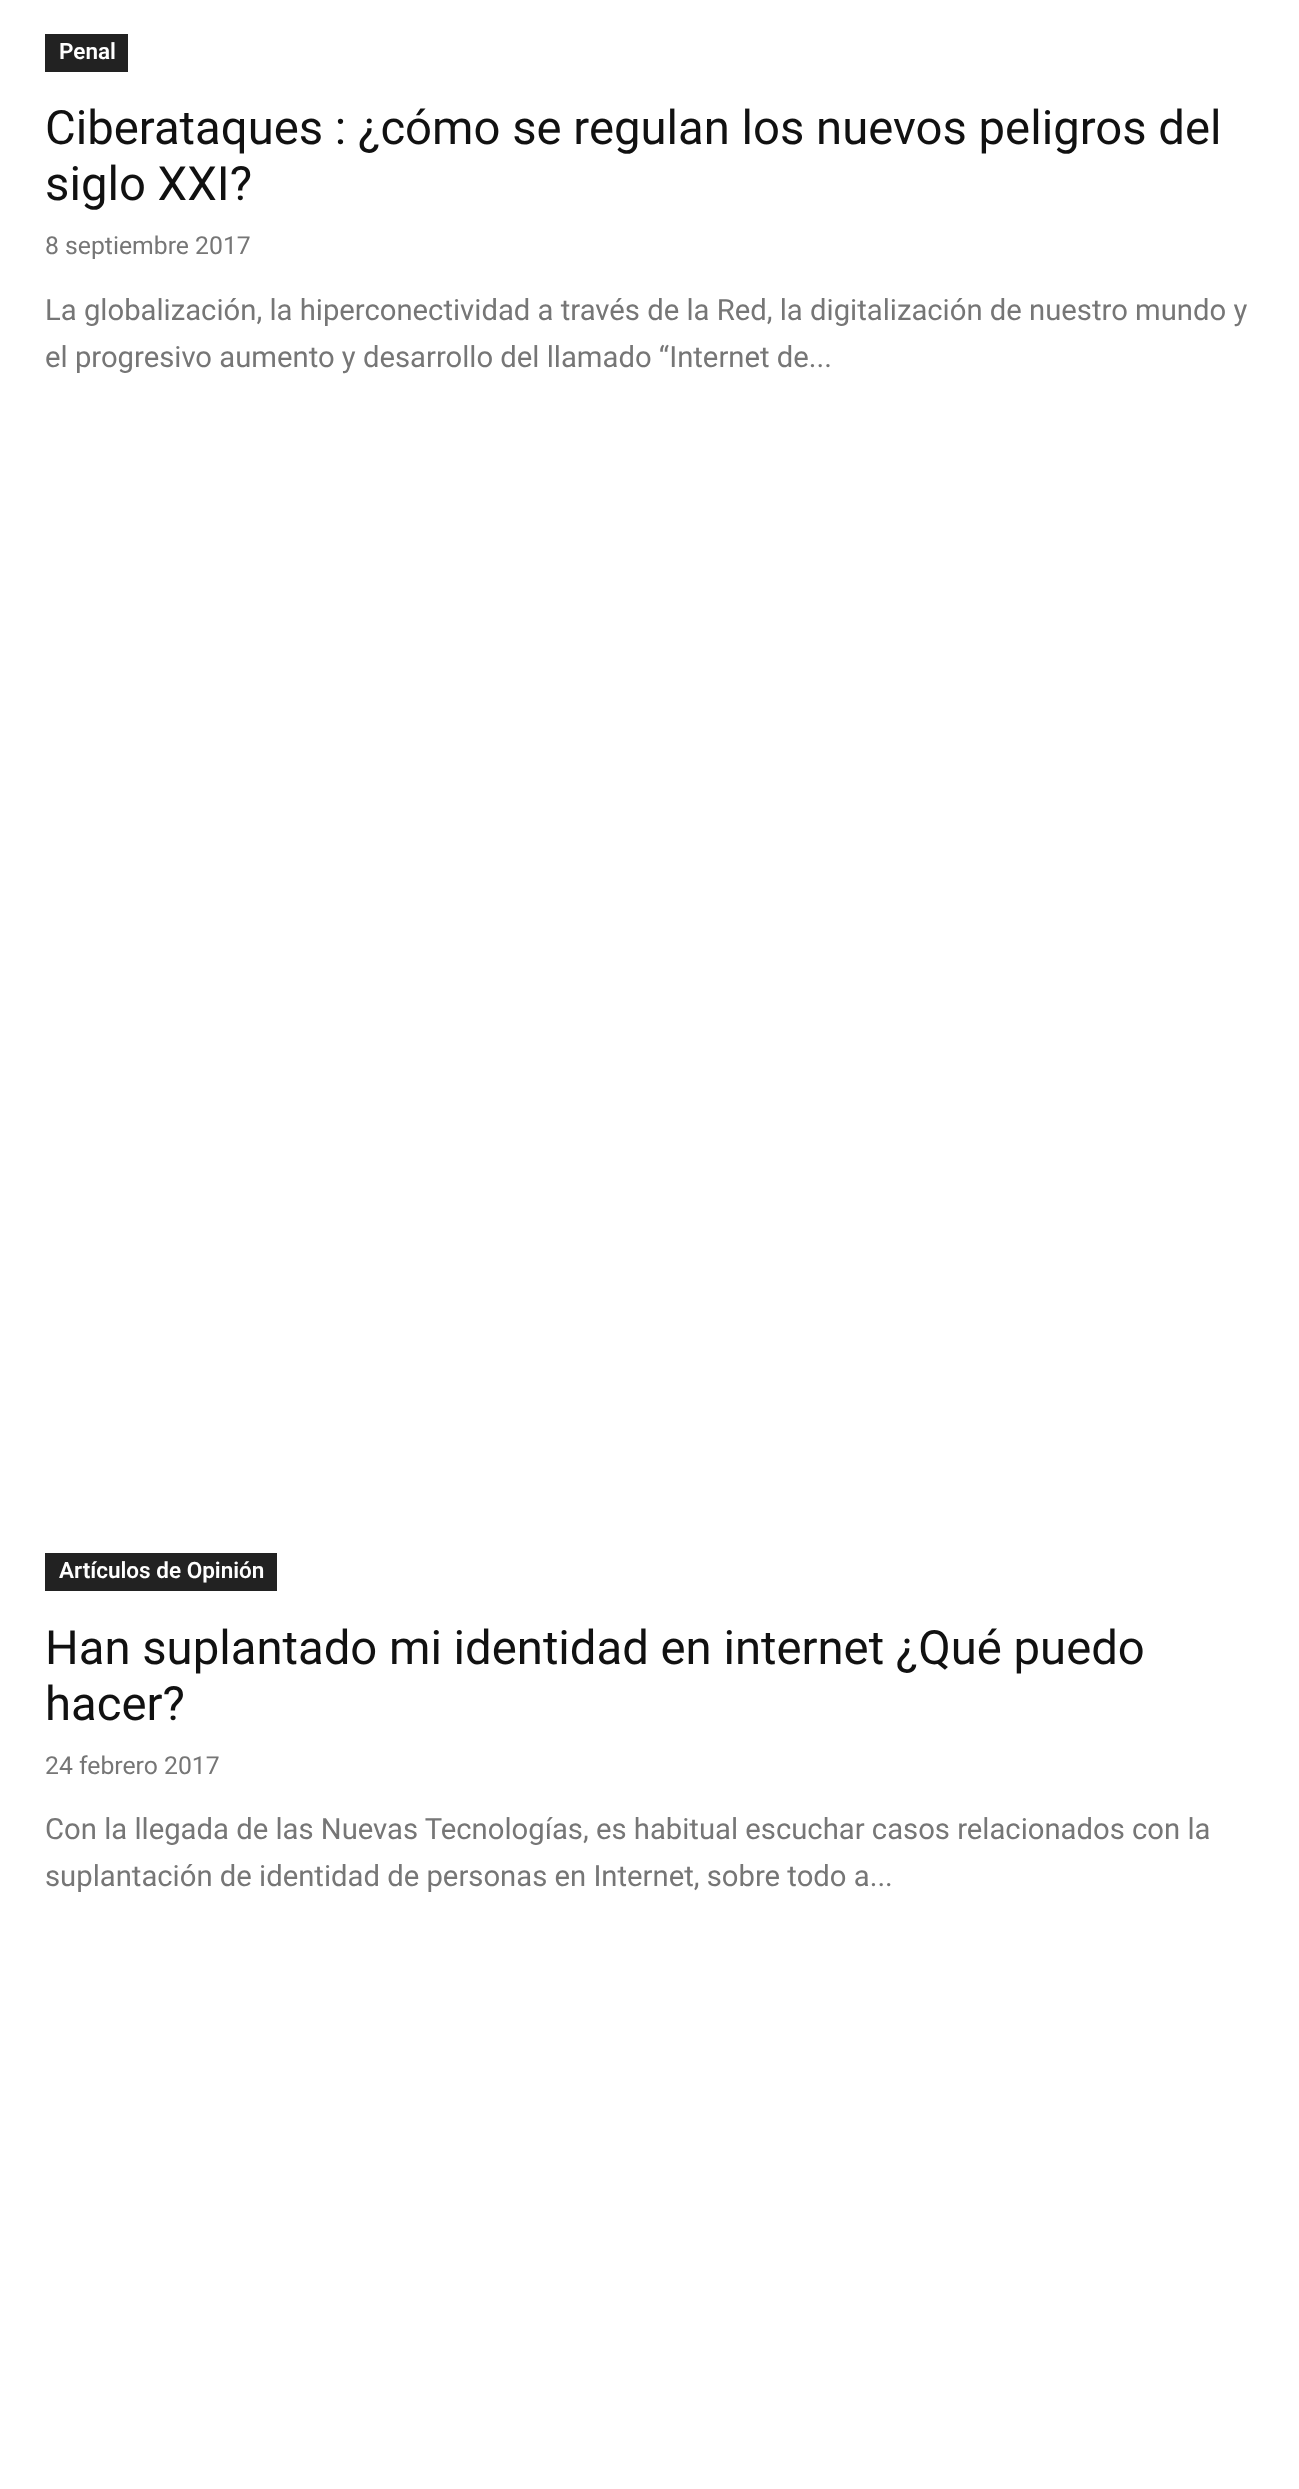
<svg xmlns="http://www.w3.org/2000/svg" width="1299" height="2489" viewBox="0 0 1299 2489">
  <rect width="100%" height="100%" fill="#ffffff"/>
  <rect x="45" y="34" width="83" height="38" fill="#222222"/>
  <text x="59" y="59" font-family="Roboto" font-size="22.5" font-weight="600" fill="#ffffff">Penal</text>
  <text x="45" y="144" font-family="Roboto" font-size="47.25" fill="#111111">Ciberataques : ¿cómo se regulan los nuevos peligros del</text>
  <text x="45" y="200" font-family="Roboto" font-size="47.25" fill="#111111">siglo XXI?</text>
  <text x="45" y="254" font-family="Roboto" font-size="24.75" fill="#767676">8 septiembre 2017</text>
  <text x="45" y="320" font-family="Roboto" font-size="29.25" fill="#767676">La globalización, la hiperconectividad a través de la Red, la digitalización de nuestro mundo y</text>
  <text x="45" y="367" font-family="Roboto" font-size="29.25" fill="#767676">el progresivo aumento y desarrollo del llamado “Internet de...</text>
  <rect x="45" y="1553" width="232" height="38" fill="#222222"/>
  <text x="59" y="1578" font-family="Roboto" font-size="22.5" font-weight="600" fill="#ffffff">Artículos de Opinión</text>
  <text x="45" y="1664" font-family="Roboto" font-size="47.25" fill="#111111">Han suplantado mi identidad en internet ¿Qué puedo</text>
  <text x="45" y="1720" font-family="Roboto" font-size="47.25" fill="#111111">hacer?</text>
  <text x="45" y="1774" font-family="Roboto" font-size="24.75" fill="#767676">24 febrero 2017</text>
  <text x="45" y="1839" font-family="Roboto" font-size="29.25" fill="#767676">Con la llegada de las Nuevas Tecnologías, es habitual escuchar casos relacionados con la</text>
  <text x="45" y="1886" font-family="Roboto" font-size="29.25" fill="#767676">suplantación de identidad de personas en Internet, sobre todo a...</text>
</svg>
